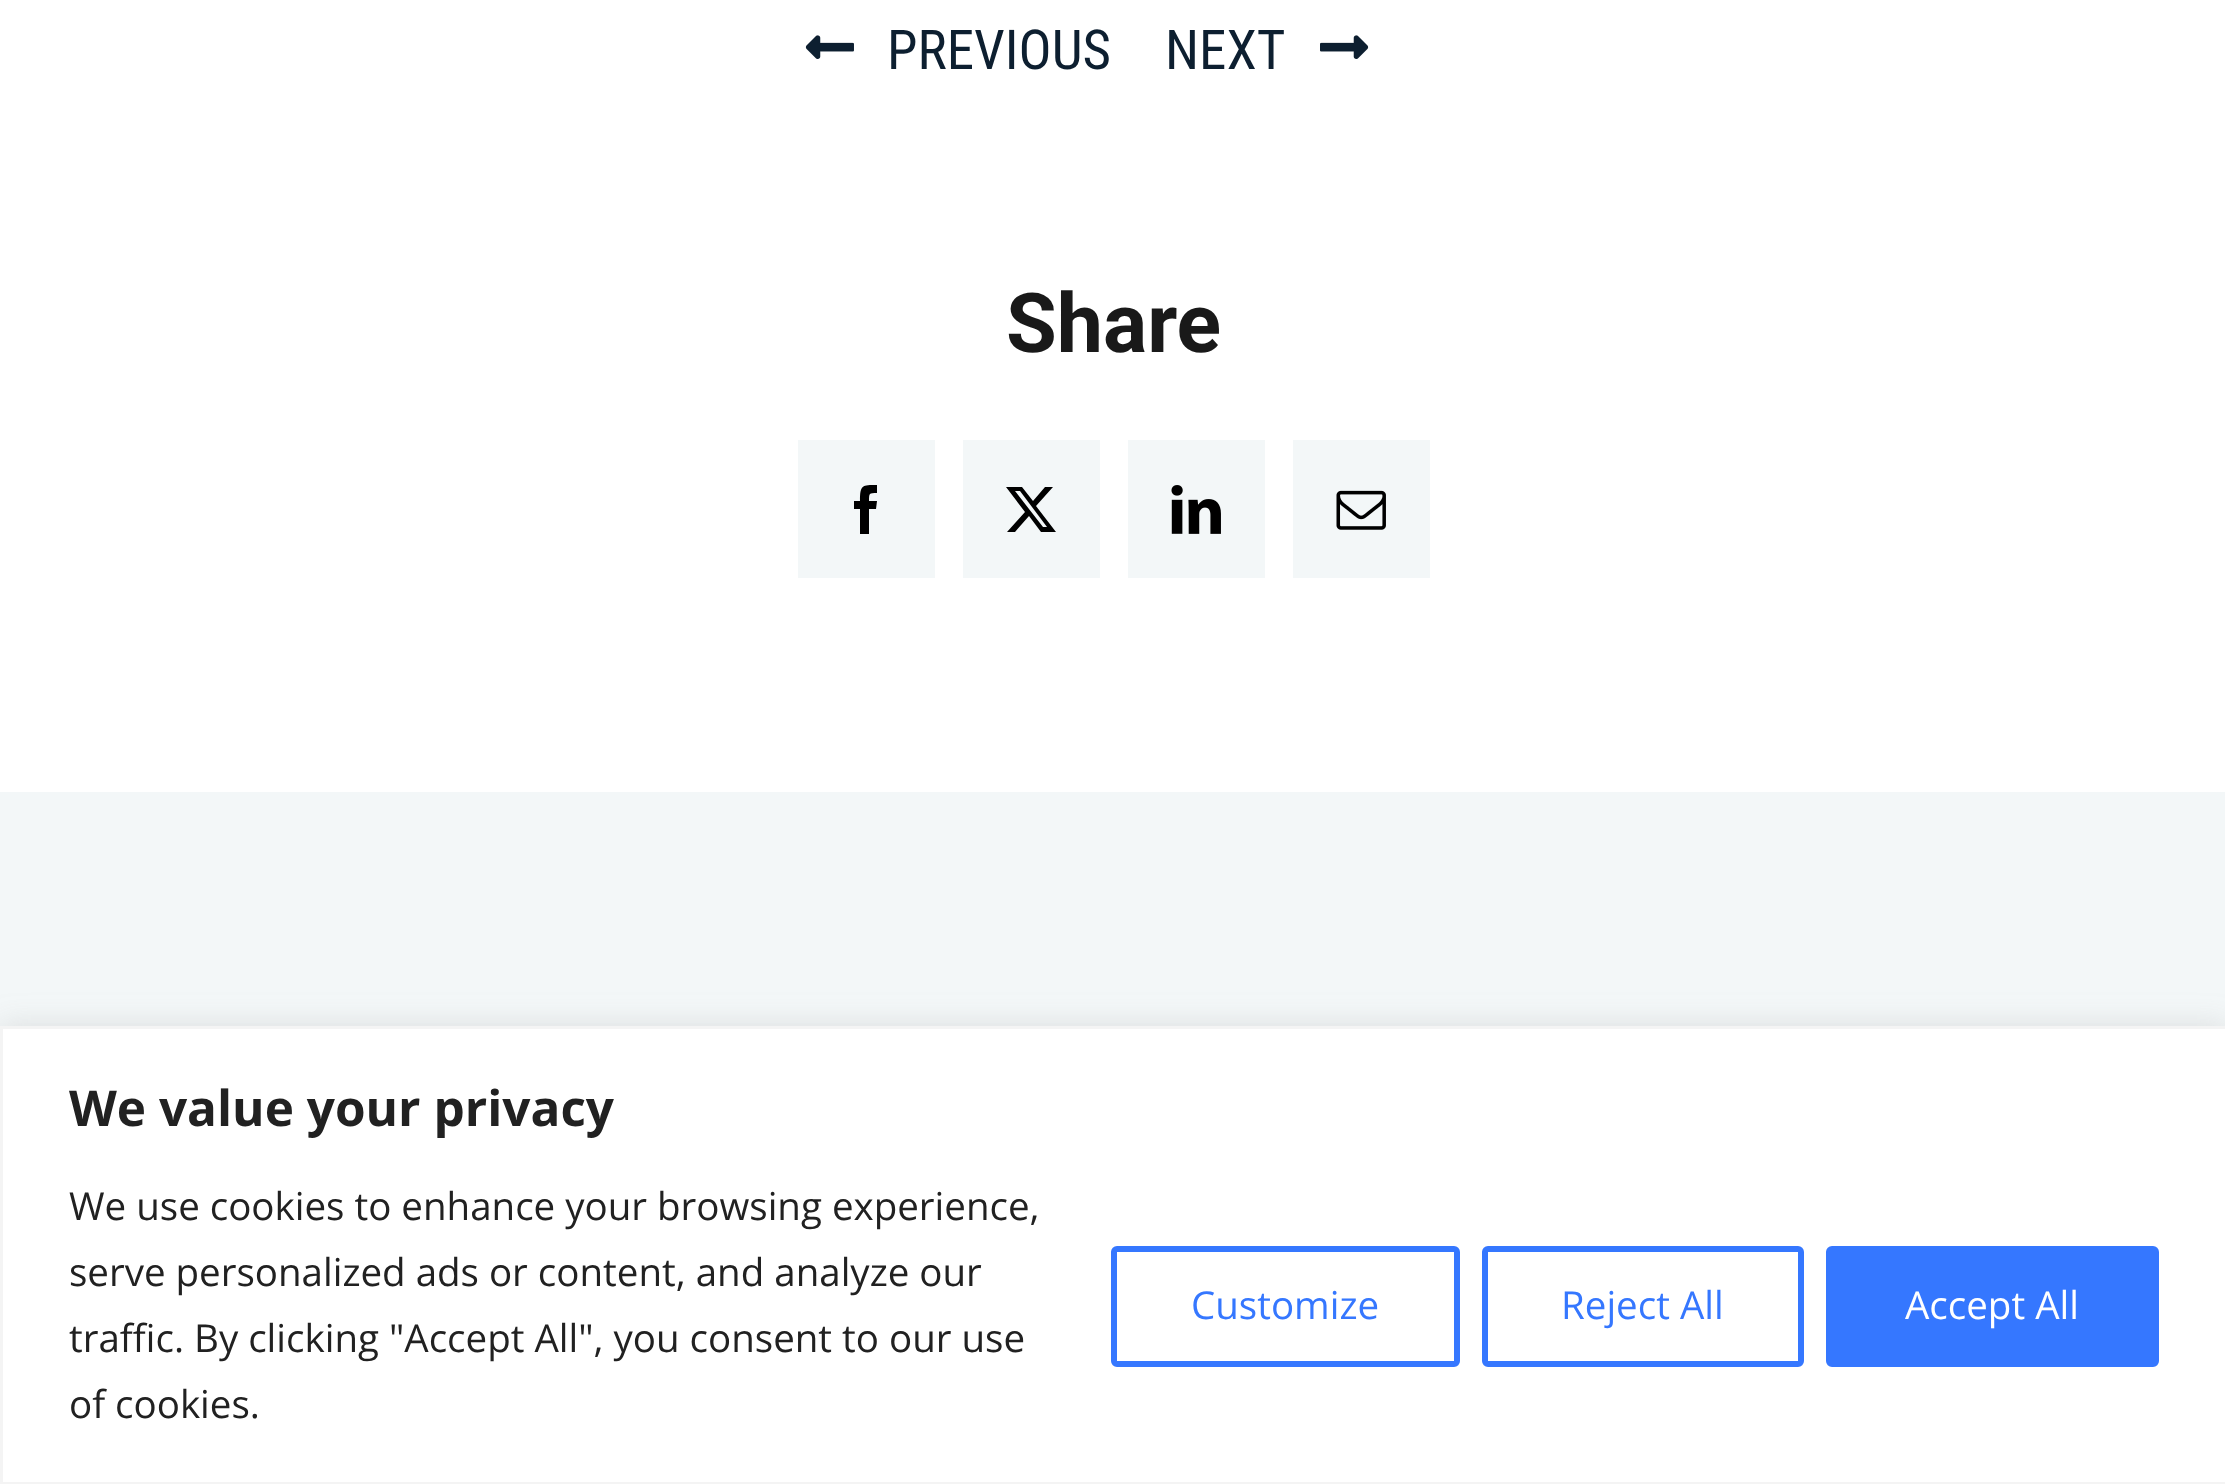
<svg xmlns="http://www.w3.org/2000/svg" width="2225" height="1484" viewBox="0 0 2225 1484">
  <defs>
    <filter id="blur1" x="-50%" y="-200%" width="200%" height="500%"><feGaussianBlur stdDeviation="14"/></filter>
  </defs>
  <rect width="100%" height="100%" fill="#ffffff"/>
  <image x="805" y="35" width="49" height="24" href="img1.png"/>
  <text x="887" y="69" font-family="Roboto Condensed" font-size="55" fill="#0d1f30">PREVIOUS</text>
  <text x="1165" y="69" font-family="Roboto Condensed" font-size="55" fill="#0d1f30">NEXT</text>
  <image x="1320" y="35" width="49" height="24" href="img2.png"/>
  <text x="1006" y="352" font-family="Roboto" font-size="82.5" font-weight="bold" fill="#191919">Share</text>
  <rect x="798" y="440" width="137" height="138" fill="#f3f7f8"/>
  <path d="M869 534H860V509H854V501H860C860 485 862 485 877 485V493C869 493 869 493 869 501H877L876 509H869Z" fill="#000000"/>
  <rect x="963" y="440" width="137" height="138" fill="#f3f7f8"/>
  <path d="M1045 487H1053L1036 506L1056 532H1041L1029 516L1015 532H1007L1025 512L1006 487H1022L1033 501ZM1043 527H1047L1020 491H1015Z" fill="#000000"/>
  <rect x="1128" y="440" width="137" height="138" fill="#f3f7f8"/>
  <image x="1171" y="485" width="50" height="49" href="img3.png"/>
  <rect x="1293" y="440" width="137" height="138" fill="#f3f7f8"/>
  <image x="1336" y="490" width="50" height="40" href="img4.png"/>
  <rect x="0" y="792" width="2225" height="234" fill="#f3f7f8"/>
  <rect x="0" y="1023" width="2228" height="459" fill="#acabab" fill-opacity="0.3" filter="url(#blur1)"/>
  <rect x="1.5" y="1027.5" width="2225" height="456" fill="#ffffff" stroke="#f4f4f4" stroke-width="3"/>
  <text x="69" y="1126" font-family="Open Sans" font-size="49.5" font-weight="bold" fill="#212121">We value your privacy</text>
  <text x="69" y="1220" font-family="Open Sans" font-size="38.5" fill="#212121">We use cookies to enhance your browsing experience,</text>
  <text x="69" y="1286" font-family="Open Sans" font-size="38.5" fill="#212121">serve personalized ads or content, and analyze our</text>
  <text x="69" y="1352" font-family="Open Sans" font-size="38.5" fill="#212121">traffic. By clicking "Accept All", you consent to our use</text>
  <text x="69" y="1418" font-family="Open Sans" font-size="38.5" fill="#212121">of cookies.</text>
  <rect x="1114" y="1249" width="343" height="115" rx="3" fill="none" stroke="#3577ff" stroke-width="6"/>
  <text x="1191" y="1319" font-family="Open Sans" font-size="38.5" fill="#3577ff">Customize</text>
  <rect x="1485" y="1249" width="316" height="115" rx="3" fill="none" stroke="#3577ff" stroke-width="6"/>
  <text x="1561" y="1319" font-family="Open Sans" font-size="38.5" fill="#3577ff">Reject All</text>
  <rect x="1829" y="1249" width="327" height="115" rx="3" fill="#3577ff" stroke="#3577ff" stroke-width="6"/>
  <text x="1905" y="1319" font-family="Open Sans" font-size="38.5" fill="#ffffff">Accept All</text>
</svg>
